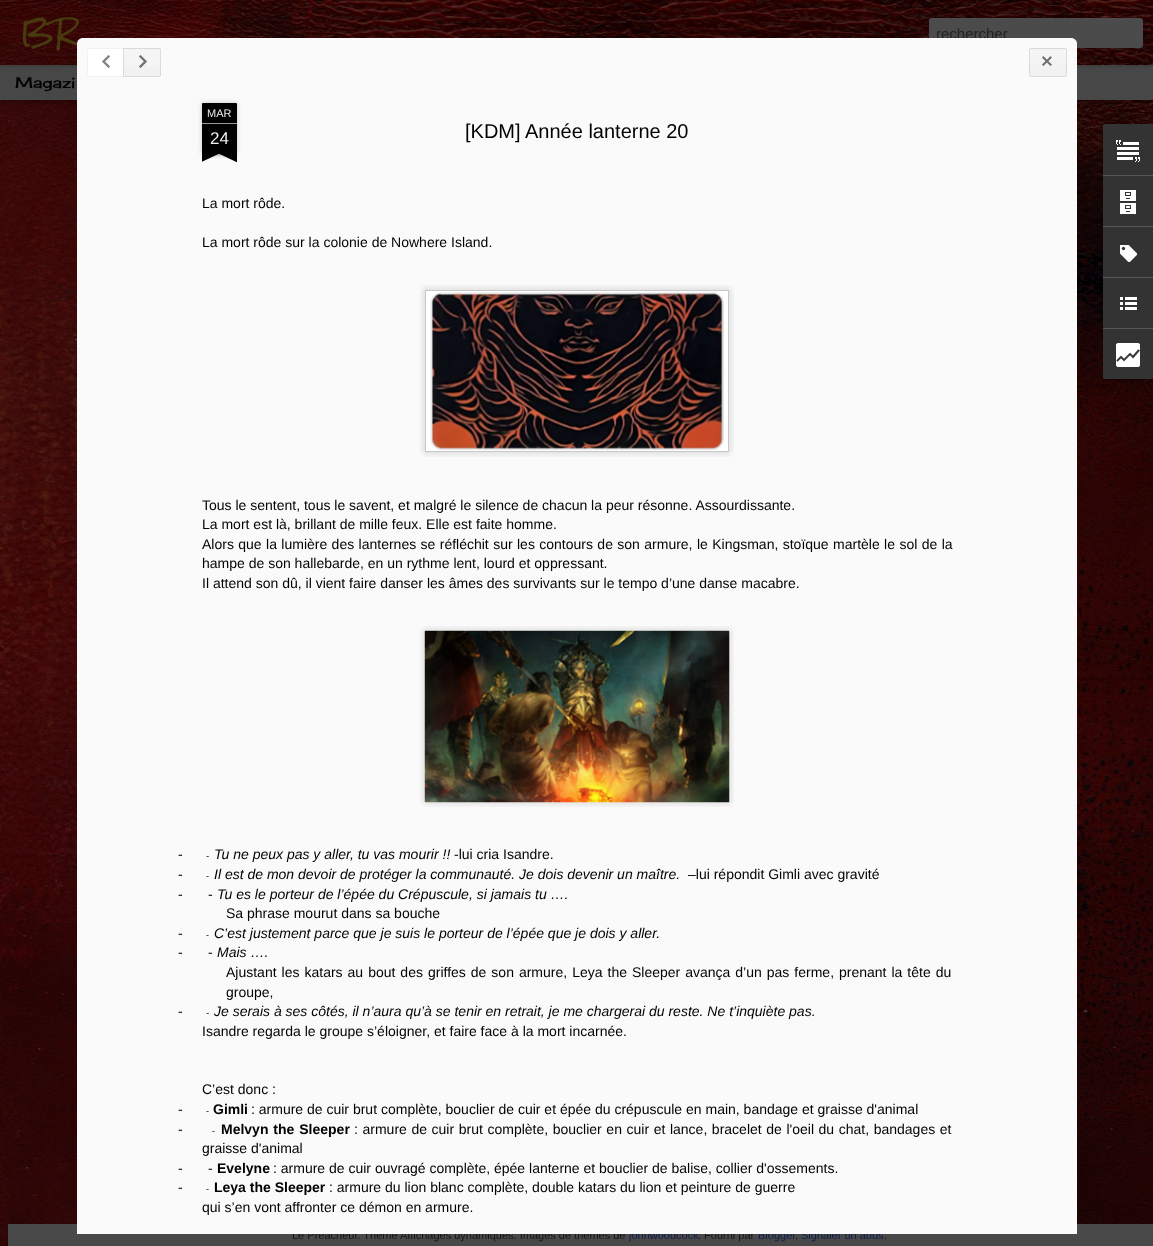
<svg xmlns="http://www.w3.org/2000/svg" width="1153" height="1246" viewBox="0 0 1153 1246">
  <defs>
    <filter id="blur1" x="-50%" y="-200%" width="200%" height="500%"><feGaussianBlur stdDeviation="4"/></filter>
    <filter id="blur2" x="-50%" y="-200%" width="200%" height="500%"><feGaussianBlur stdDeviation="2.5"/></filter>
    <linearGradient id="g1" gradientUnits="userSpaceOnUse" x1="590" y1="1224" x2="590" y2="1246"><stop offset="0" stop-color="#4a4a4a"/><stop offset="1" stop-color="#484848"/></linearGradient>
    <linearGradient id="g2" gradientUnits="userSpaceOnUse" x1="142" y1="22" x2="142" y2="49"><stop offset="0" stop-color="#f5f5f5"/><stop offset="1" stop-color="#f1f1f1"/></linearGradient>
    <linearGradient id="g3" gradientUnits="userSpaceOnUse" x1="142" y1="49" x2="142" y2="76"><stop offset="0" stop-color="#f5f5f5"/><stop offset="1" stop-color="#f1f1f1"/></linearGradient>
    <clipPath id="clip1"><rect x="1029" y="48" width="38" height="29" rx="2"/></clipPath>
    <linearGradient id="g4" gradientUnits="userSpaceOnUse" x1="1048" y1="22" x2="1048" y2="49"><stop offset="0" stop-color="#f5f5f5"/><stop offset="1" stop-color="#f1f1f1"/></linearGradient>
    <linearGradient id="g5" gradientUnits="userSpaceOnUse" x1="1048" y1="49" x2="1048" y2="76"><stop offset="0" stop-color="#f5f5f5"/><stop offset="1" stop-color="#f1f1f1"/></linearGradient>
    <clipPath id="clip2"><rect x="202" y="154" width="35" height="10"/></clipPath>
    <clipPath id="clip3"><rect x="202" y="154" width="35" height="10"/></clipPath>
    <filter id="blur3" x="-50%" y="-200%" width="200%" height="500%"><feGaussianBlur stdDeviation="1.5"/></filter>
  </defs>
  <rect width="100%" height="100%" fill="#ffffff"/>
  <image x="0" y="100" width="1153" height="1146" href="img1.png"/>
  <rect x="0" y="65" width="1153" height="35" fill="#000000" fill-opacity="0.5" filter="url(#blur1)"/>
  <rect x="0" y="65" width="1153" height="35" fill="#474747"/>
  <rect x="0" y="0" width="1153" height="65" fill="#000000" fill-opacity="0.3" filter="url(#blur2)"/>
  <image x="0" y="0" width="1153" height="65" href="img2.png"/>
  <text x="20" y="43" font-family="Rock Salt" font-size="28" fill="#483a0f">BR</text>
  <rect x="929" y="18" width="214" height="30" rx="3" fill="#4b4b4b"/>
  <text x="936" y="39" font-family="Liberation Sans" font-size="15" fill="#232323">rechercher</text>
  <text x="15" y="88" font-family="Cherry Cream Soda" font-size="15" fill="#000000">Magazi</text>
  <rect x="8" y="1224" width="1145" height="22" fill="url(#g1)"/>
  <text x="292" y="1239" font-family="Liberation Sans" font-size="11" fill="#141414">Le Preacheur. Thème Affichages dynamiques. Images de thèmes de</text>
  <text x="629" y="1239" font-family="Liberation Sans" font-size="11" fill="#0f1d48">johnwoodcock</text>
  <text x="698" y="1239" font-family="Liberation Sans" font-size="11" fill="#141414">. Fourni par</text>
  <text x="758" y="1239" font-family="Liberation Sans" font-size="11" fill="#0f1d48">Blogger</text>
  <text x="801" y="1239" font-family="Liberation Sans" font-size="11" fill="#0f1d48">Signaler un abus</text>
  <path d="M83 38H1071C1074.5 38 1077 40.5 1077 44V1234H77V44C77 40.5 79.5 38 83 38Z" fill="#fafafa"/>
  <path d="M89 48.5H124.5V76.5H89C88 76.5 87.5 76 87.5 75V50C87.5 49 88 48.5 89 48.5Z" fill="#ffffff" stroke="#f2f2f2"/>
  <image x="102" y="55" width="8" height="13" href="img3.png"/>
  <path d="M123 48H159C160 48 161 49 161 50V75C161 76 160 77 159 77H123Z" fill="#f5f5f5"/>
  <rect x="123" y="48" width="38" height="1" fill="url(#g2)"/>
  <rect x="123" y="66" width="38" height="10" fill="url(#g3)"/>
  <path d="M123.5 48.5H159C160 48.5 160.5 49 160.5 50V75C160.5 76 160 76.5 159 76.5H123.5Z" fill="none" stroke="#000000" stroke-opacity="0.1"/>
  <image x="139" y="55" width="8" height="13" href="img4.png"/>
  <rect x="1029" y="48" width="38" height="29" rx="2" fill="#f5f5f5"/>
  <g clip-path="url(#clip1)">
    <rect x="1029" y="48" width="38" height="1" fill="url(#g4)"/>
    <rect x="1029" y="49" width="38" height="27" fill="url(#g5)"/>
  </g>
  <rect x="1029.5" y="48.5" width="37" height="28" rx="1.5" fill="none" stroke="#000000" stroke-opacity="0.1"/>
  <image x="1042" y="56" width="10" height="10" href="img5.png"/>
  <rect x="202" y="124" width="35" height="30" fill="#000000" fill-opacity="0.2" filter="url(#blur2)"/>
  <rect x="202" y="124" width="35" height="30" fill="#000000"/>
  <rect x="202" y="103" width="35" height="21" rx="1" fill="#000000" fill-opacity="0.2" filter="url(#blur2)"/>
  <path d="M203 103H236C236.5 103 237 103.5 237 104V124H202V104C202 103.5 202.5 103 203 103Z" fill="#000000"/>
  <rect x="202" y="123" width="35" height="1" fill="#999999"/>
  <text x="207" y="117" font-family="Liberation Sans" font-size="11" fill="#eeeeee">MAR</text>
  <text x="210" y="144" font-family="Liberation Sans" font-size="17" fill="#eeeeee">24</text>
  <g clip-path="url(#clip2)">
    <rect x="193" y="144" width="50" height="10" fill="#000000" fill-opacity="0.2" filter="url(#blur2)"/>
  </g>
  <g clip-path="url(#clip3)">
    <path d="M193 155L238 134L242 143L197 164Z" fill="#000000"/>
  </g>
  <g clip-path="url(#clip2)">
    <rect x="196" y="144" width="50" height="10" fill="#000000" fill-opacity="0.2" filter="url(#blur2)"/>
  </g>
  <g clip-path="url(#clip3)">
    <path d="M200 134L245 155L241 164L196 143Z" fill="#000000"/>
  </g>
  <text x="465" y="138" font-family="Liberation Sans" font-size="20" fill="#000000">[KDM] Année lanterne 20</text>
  <text x="202" y="208" font-family="Liberation Sans" font-size="14" fill="#000000">La mort rôde.</text>
  <text x="202" y="247" font-family="Liberation Sans" font-size="14" fill="#000000">La mort rôde sur la colonie de Nowhere Island.</text>
  <image x="420" y="285" width="314" height="172" href="img6.png"/>
  <image x="430" y="292" width="294" height="158" href="img7.png"/>
  <text x="202" y="510" font-family="Liberation Sans" font-size="14" fill="#000000">Tous le sentent, tous le savent, et malgré le silence de chacun la peur résonne. Assourdissante.</text>
  <text x="202" y="529" font-family="Liberation Sans" font-size="14" fill="#000000">La mort est là, brillant de mille feux. Elle est faite homme.</text>
  <text x="202" y="549" word-spacing="0.5" font-family="Liberation Sans" font-size="14" fill="#000000">Alors que la lumière des lanternes se réfléchit sur les contours de son armure, le Kingsman, stoïque martèle le sol de la</text>
  <text x="202" y="568" font-family="Liberation Sans" font-size="14" fill="#000000">hampe de son hallebarde, en un rythme lent, lourd et oppressant.</text>
  <text x="202" y="588" font-family="Liberation Sans" font-size="14" fill="#000000">Il attend son dû, il vient faire danser les âmes des survivants sur le tempo d’une danse macabre.</text>
  <image x="420" y="626" width="314" height="181" href="img8.png"/>
  <image x="424" y="630" width="306" height="173" href="img9.png"/>
  <text x="178" y="859" font-family="Liberation Sans" font-size="14" fill="#000000">-</text>
  <text x="214" y="859" font-family="Liberation Sans" font-size="14" font-style="italic" fill="#000000">Tu ne peux pas y aller, tu vas mourir !!</text>
  <text x="454" y="859" font-family="Liberation Sans" font-size="14" fill="#000000">-lui cria Isandre.</text>
  <text x="206" y="859" font-family="Liberation Sans" font-size="9" font-style="italic" fill="#000000">-</text>
  <text x="178" y="879" font-family="Liberation Sans" font-size="14" fill="#000000">-</text>
  <text x="214" y="879" font-family="Liberation Sans" font-size="14" font-style="italic" fill="#000000">Il est de mon devoir de protéger la communauté. Je dois devenir un maître.</text>
  <text x="688" y="879" font-family="Liberation Sans" font-size="14" fill="#000000">–lui répondit Gimli avec gravité</text>
  <text x="206" y="879" font-family="Liberation Sans" font-size="9" fill="#000000">-</text>
  <text x="178" y="899" font-family="Liberation Sans" font-size="14" fill="#000000">-</text>
  <text x="208" y="899" font-family="Liberation Sans" font-size="14" fill="#000000">-</text>
  <text x="217" y="899" font-family="Liberation Sans" font-size="14" font-style="italic" fill="#000000">Tu es le porteur de l’épée du Crépuscule, si jamais tu ….</text>
  <text x="226" y="918" font-family="Liberation Sans" font-size="14" fill="#000000">Sa phrase mourut dans sa bouche</text>
  <text x="178" y="938" font-family="Liberation Sans" font-size="14" fill="#000000">-</text>
  <text x="214" y="938" font-family="Liberation Sans" font-size="14" font-style="italic" fill="#000000">C’est justement parce que je suis le porteur de l’épée que je dois y aller.</text>
  <text x="206" y="938" font-family="Liberation Sans" font-size="9" fill="#000000">-</text>
  <text x="178" y="957" font-family="Liberation Sans" font-size="14" fill="#000000">-</text>
  <text x="208" y="957" font-family="Liberation Sans" font-size="14" fill="#000000">-</text>
  <text x="217" y="957" font-family="Liberation Sans" font-size="14" font-style="italic" fill="#000000">Mais ….</text>
  <text x="226" y="977" word-spacing="1.1" font-family="Liberation Sans" font-size="14" fill="#000000">Ajustant les katars au bout des griffes de son armure, Leya the Sleeper avança d’un pas ferme, prenant la tête du</text>
  <text x="226" y="997" font-family="Liberation Sans" font-size="14" fill="#000000">groupe,</text>
  <text x="178" y="1016" font-family="Liberation Sans" font-size="14" fill="#000000">-</text>
  <text x="214" y="1016" font-family="Liberation Sans" font-size="14" font-style="italic" fill="#000000">Je serais à ses côtés, il n’aura qu’à se tenir en retrait, je me chargerai du reste. Ne t’inquiète pas.</text>
  <text x="206" y="1016" font-family="Liberation Sans" font-size="9" font-style="italic" fill="#000000">-</text>
  <text x="202" y="1036" font-family="Liberation Sans" font-size="14" fill="#000000">Isandre regarda le groupe s’éloigner, et faire face à la mort incarnée.</text>
  <text x="202" y="1094" font-family="Liberation Sans" font-size="14" fill="#000000">C’est donc :</text>
  <text x="178" y="1114" font-family="Liberation Sans" font-size="14" fill="#000000">-</text>
  <text x="213" y="1114" font-family="Liberation Sans" font-size="14" font-weight="bold" fill="#000000">Gimli</text>
  <text x="251" y="1114" font-family="Liberation Sans" font-size="14" fill="#000000">: armure de cuir brut complète, bouclier de cuir et épée du crépuscule en main, bandage et graisse d'animal</text>
  <text x="206" y="1114" font-family="Liberation Sans" font-size="9" fill="#000000">-</text>
  <text x="178" y="1134" font-family="Liberation Sans" font-size="14" fill="#000000">-</text>
  <text x="221" y="1134" word-spacing="1" font-family="Liberation Sans" font-size="14" font-weight="bold" fill="#000000">Melvyn the Sleeper</text>
  <text x="354" y="1134" word-spacing="0.7" font-family="Liberation Sans" font-size="14" fill="#000000">: armure de cuir brut complète, bouclier en cuir et lance, bracelet de l'oeil du chat, bandages et</text>
  <text x="212" y="1134" font-family="Liberation Sans" font-size="9" fill="#000000">-</text>
  <text x="202" y="1153" font-family="Liberation Sans" font-size="14" fill="#000000">graisse d'animal</text>
  <text x="178" y="1173" font-family="Liberation Sans" font-size="14" fill="#000000">-</text>
  <text x="208" y="1173" font-family="Liberation Sans" font-size="14" fill="#000000">-</text>
  <text x="217" y="1173" font-family="Liberation Sans" font-size="14" font-weight="bold" fill="#000000">Evelyne</text>
  <text x="273" y="1173" font-family="Liberation Sans" font-size="14" fill="#000000">: armure de cuir ouvragé complète, épée lanterne et bouclier de balise, collier d'ossements.</text>
  <text x="178" y="1192" font-family="Liberation Sans" font-size="14" fill="#000000">-</text>
  <text x="214" y="1192" font-family="Liberation Sans" font-size="14" font-weight="bold" fill="#000000">Leya the Sleeper</text>
  <text x="329" y="1192" font-family="Liberation Sans" font-size="14" fill="#000000">: armure du lion blanc complète, double katars du lion et peinture de guerre</text>
  <text x="206" y="1192" font-family="Liberation Sans" font-size="9" fill="#000000">-</text>
  <text x="202" y="1212" font-family="Liberation Sans" font-size="14" fill="#000000">qui s’en vont affronter ce démon en armure.</text>
  <rect x="1103" y="125" width="50" height="255" rx="2" fill="#000000" fill-opacity="0.3" filter="url(#blur3)"/>
  <path d="M1105 124H1153V379H1105C1104 379 1103 378 1103 377V126C1103 125 1104 124 1105 124Z" fill="#333333"/>
  <path d="M1105 124H1153V175H1103V126C1103 125 1104 124 1105 124Z" fill="#333333"/>
  <image x="1116" y="140" width="24" height="22" href="img10.png"/>
  <rect x="1103" y="175" width="50" height="1" fill="#585858"/>
  <image x="1120" y="190" width="16" height="24" href="img11.png"/>
  <rect x="1103" y="226" width="50" height="1" fill="#585858"/>
  <image x="1120" y="245" width="17" height="17" href="img12.png"/>
  <rect x="1103" y="277" width="50" height="1" fill="#585858"/>
  <image x="1120" y="297" width="17" height="13" href="img13.png"/>
  <path d="M1103 328H1153V379H1105C1104 379 1103 378 1103 377Z" fill="#333333"/>
  <rect x="1103" y="328" width="50" height="1" fill="#585858"/>
  <image x="1116" y="343" width="24" height="24" href="img14.png"/>
  <text x="795" y="1239" font-family="Liberation Sans" font-size="11" fill="#141414">.</text>
  <text x="884" y="1239" font-family="Liberation Sans" font-size="11" fill="#141414">.</text>
</svg>
